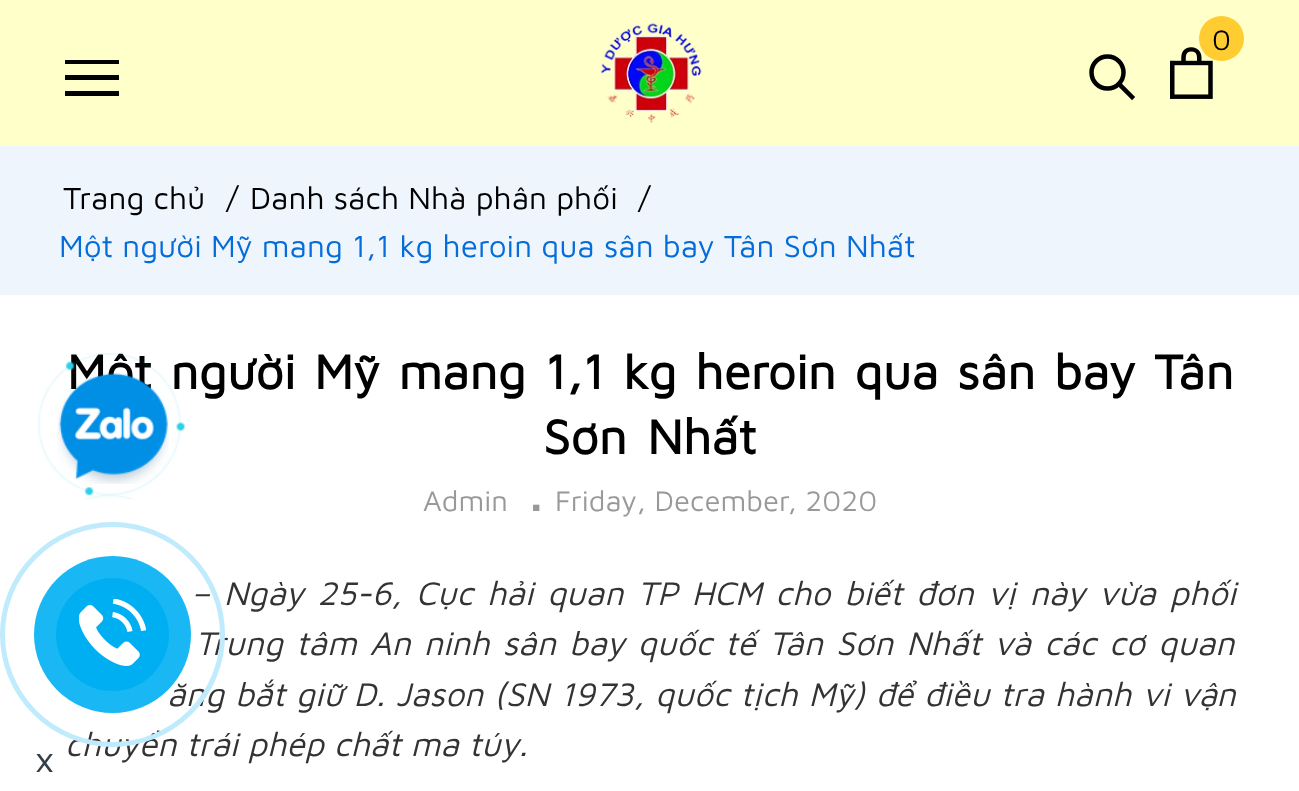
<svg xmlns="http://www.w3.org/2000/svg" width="1299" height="791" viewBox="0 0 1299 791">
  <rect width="100%" height="100%" fill="#ffffff"/>
  <rect x="0" y="0" width="1299" height="146" fill="#ffffc9"/>
  <image x="600" y="22" width="102" height="102" href="img1.png"/>
  <image x="1170" y="47" width="43" height="52" href="img2.png"/>
  <circle cx="1221.5" cy="38.5" r="22.5" fill="#ffcc32"/>
  <text x="1212" y="50" font-family="Maven Pro" font-size="29.25" fill="#000000">0</text>
  <path d="M1132 97L1119 84" fill="none" stroke="#000000" stroke-width="4.5" stroke-linecap="square"/>
  <circle cx="1107.5" cy="72.5" r="16" fill="none" stroke="#000000" stroke-width="4.5"/>
  <path d="M65 96V91H119V96ZM65 75H119V80H65ZM65 60H119V64H65Z" fill="#000000"/>
  <rect x="0" y="146" width="1299" height="149" fill="#eef5fd"/>
  <text x="63" y="209" font-family="Maven Pro" font-size="31.5" fill="#000000">Trang chủ</text>
  <text x="226" y="209" font-family="Maven Pro" font-size="31.5" fill="#000000">/</text>
  <text x="250" y="209" font-family="Maven Pro" font-size="31.5" fill="#000000">Danh sách Nhà phân phối</text>
  <text x="638" y="209" font-family="Maven Pro" font-size="31.5" fill="#000000">/</text>
  <text x="59" y="257" font-family="Maven Pro" font-size="31.5" fill="#056dd9">Một người Mỹ mang 1,1 kg heroin qua sân bay Tân Sơn Nhất</text>
  <text x="67" y="389" word-spacing="4.25" font-family="Maven Pro" font-size="49.5" font-weight="bold" fill="#000000">Một người Mỹ mang 1,1 kg heroin qua sân bay Tân</text>
  <image x="38" y="353" width="148" height="147" href="img3.png"/>
  <image x="57" y="372" width="112" height="112" href="img4.png"/>
  <text x="543" y="454" word-spacing="6" font-family="Maven Pro" font-size="49.5" font-weight="bold" fill="#000000">Sơn Nhất</text>
  <text x="423" y="511" font-family="Maven Pro" font-size="29.25" fill="#999999">Admin</text>
  <text x="528" y="511" font-family="Maven Pro" font-size="63" fill="#999999">.</text>
  <text x="555" y="511" font-family="Maven Pro" font-size="29.25" fill="#999999">Friday, December, 2020</text>
  <text x="191" y="605" word-spacing="4" font-family="Maven Pro" font-size="33.75" font-style="italic" fill="#333333">– Ngày 25-6, Cục hải quan TP HCM cho biết đơn vị này vừa phối</text>
  <text x="195" y="655" word-spacing="3.25" font-family="Maven Pro" font-size="33.75" font-style="italic" fill="#333333">Trung tâm An ninh sân bay quốc tế Tân Sơn Nhất và các cơ quan</text>
  <text x="167" y="706" word-spacing="1" font-family="Maven Pro" font-size="33.75" font-style="italic" fill="#333333">ăng bắt giữ D. Jason (SN 1973, quốc tịch Mỹ) để điều tra hành vi vận</text>
  <text x="65" y="756" font-family="Maven Pro" font-size="33.75" font-style="italic" fill="#333333">chuyển trái phép chất ma túy.</text>
  <circle cx="112.5" cy="634.5" r="110" fill="none" stroke="#bfebfc" stroke-width="5"/>
  <circle cx="112.5" cy="634.5" r="78.5" fill="#00aff2" fill-opacity="0.9"/>
  <circle cx="112.5" cy="634.5" r="56.5" fill="#00aff2"/>
  <image x="79" y="599" width="67" height="67" href="img5.png"/>
  <text x="35" y="772" font-family="Maven Pro" font-size="36" fill="#333f48">x</text>
</svg>
